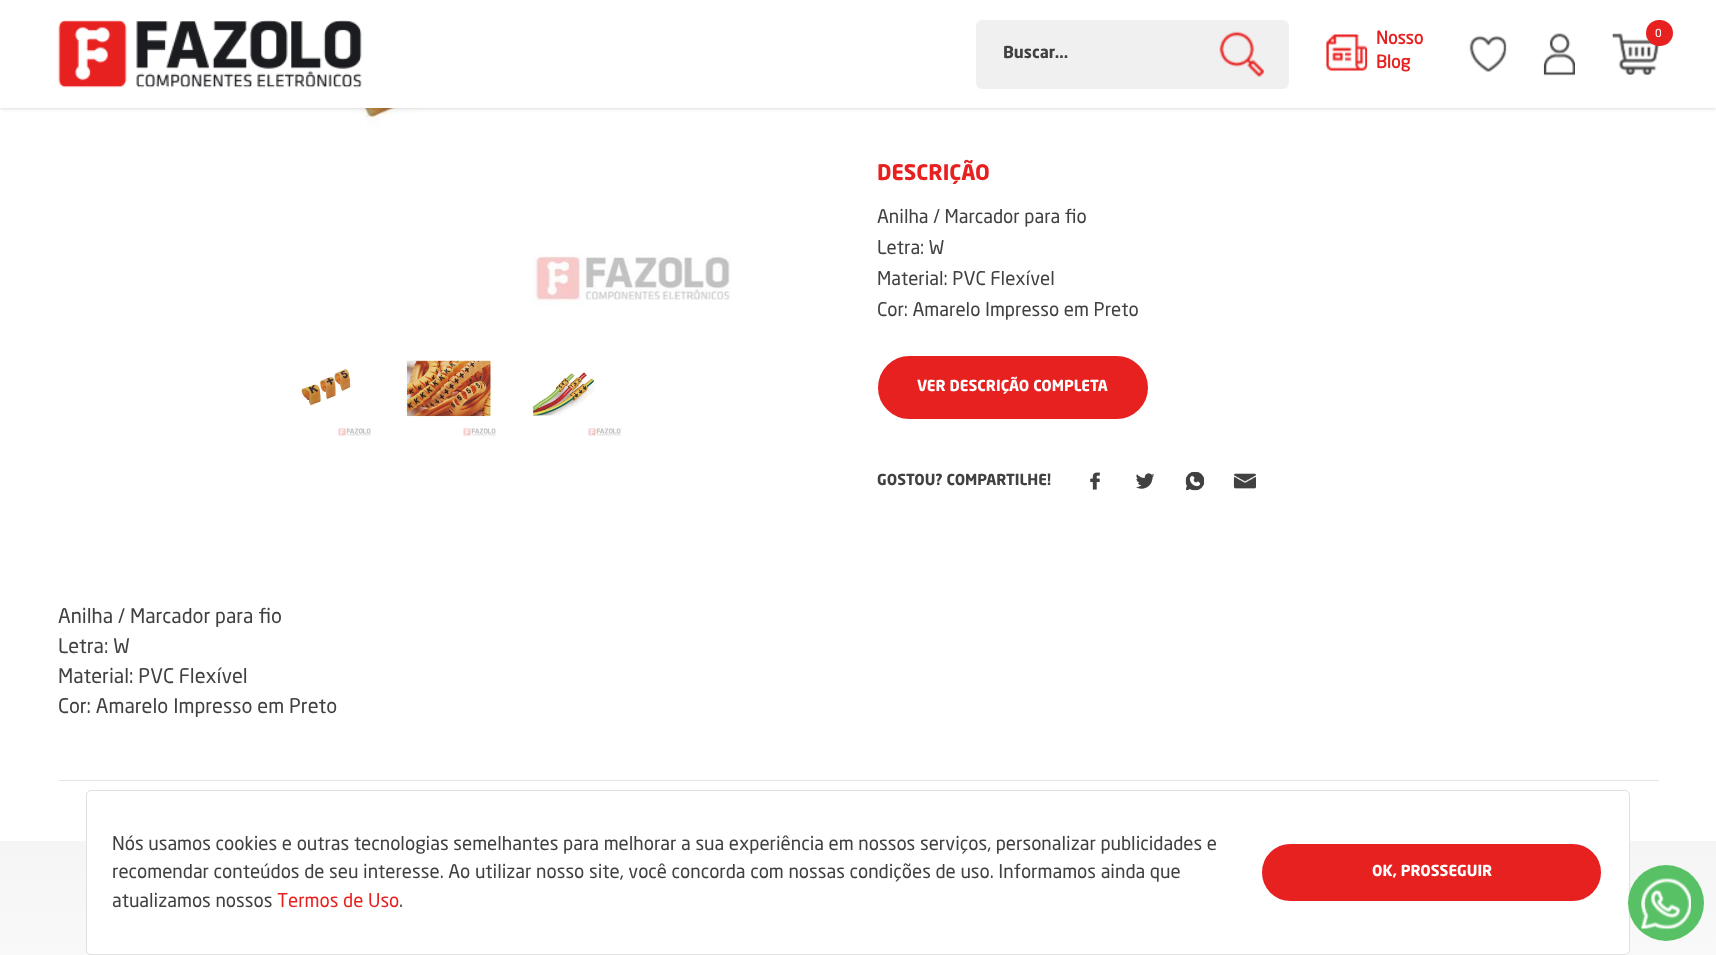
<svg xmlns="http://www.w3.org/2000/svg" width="1716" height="955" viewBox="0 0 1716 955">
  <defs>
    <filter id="blur1" x="-50%" y="-200%" width="200%" height="500%"><feGaussianBlur stdDeviation="2"/></filter>
    <linearGradient id="g1" gradientUnits="userSpaceOnUse" x1="858" y1="841" x2="858" y2="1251"><stop offset="0" stop-color="#f5f5f5"/><stop offset="0.7" stop-color="#ffffff"/></linearGradient>
  </defs>
  <rect width="100%" height="100%" fill="#ffffff"/>
  <image x="314" y="108" width="417" height="198" href="img7.png"/>
  <rect x="0" y="0" width="1716" height="108" fill="#000000" fill-opacity="0.2" filter="url(#blur1)"/>
  <rect x="0" y="0" width="1716" height="108" fill="#ffffff"/>
  <image x="58" y="20" width="304" height="68" href="img1.png"/>
  <rect x="976" y="20" width="313" height="69" rx="6" fill="#f0f0f0"/>
  <text x="1003" y="58" font-family="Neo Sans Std" font-size="16.25" font-weight="bold" fill="#414141">Buscar...</text>
  <image x="1219" y="31" width="45" height="46" href="img2.png"/>
  <image x="1326" y="34" width="42" height="37" href="img3.png"/>
  <text x="1376" y="44" font-family="'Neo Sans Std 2'" font-size="17.5" font-weight="bold" fill="#e72120">Nosso</text>
  <text x="1376" y="68" font-family="'Neo Sans Std 2'" font-size="17.5" font-weight="bold" fill="#e72120">Blog</text>
  <image x="1469" y="35" width="38" height="37" href="img4.png"/>
  <image x="1543" y="33" width="32" height="43" href="img5.png"/>
  <image x="1612" y="33" width="47" height="42" href="img6.png"/>
  <rect x="1646" y="20" width="27" height="26" rx="13" fill="#e72120"/>
  <text x="1655" y="37" font-family="Neo Sans Std" font-size="11" fill="#ffffff">0</text>
  <image x="301" y="368" width="70" height="68" href="img8.png"/>
  <image x="405" y="360" width="91" height="76" href="img9.png"/>
  <image x="532" y="372" width="89" height="64" href="img10.png"/>
  <text x="877" y="180" font-family="Neo Sans Std" font-size="21.25" font-weight="bold" fill="#e72120">DESCRIÇÃO</text>
  <text x="877" y="223" font-family="Neo Sans Std" font-size="18.75" fill="#414141">Anilha / Marcador para fio</text>
  <text x="877" y="254" font-family="Neo Sans Std" font-size="18.75" fill="#414141">Letra: W</text>
  <text x="877" y="285" font-family="Neo Sans Std" font-size="18.75" fill="#414141">Material: PVC Flexível</text>
  <text x="877" y="316" font-family="Neo Sans Std" font-size="18.75" fill="#414141">Cor: Amarelo Impresso em Preto</text>
  <rect x="879.5" y="357.5" width="267" height="60" rx="30" fill="#e72120" stroke="#e72120" stroke-width="3"/>
  <text x="917" y="391" font-family="Neo Sans Std" font-size="15" font-weight="bold" fill="#ffffff">VER DESCRIÇÃO COMPLETA</text>
  <text x="877" y="485" font-family="Neo Sans Std" font-size="15" font-weight="bold" fill="#414141">GOSTOU? COMPARTILHE!</text>
  <image x="1090" y="472" width="10" height="18" href="img11.png"/>
  <image x="1136" y="473" width="18" height="16" href="img12.png"/>
  <image x="1185" y="471" width="20" height="20" href="img13.png"/>
  <image x="1233" y="473" width="23" height="16" href="img14.png"/>
  <text x="58" y="623" font-family="Neo Sans Std" font-size="20" fill="#414141">Anilha / Marcador para fio</text>
  <text x="58" y="653" font-family="Neo Sans Std" font-size="20" fill="#414141">Letra: W</text>
  <text x="58" y="683" font-family="Neo Sans Std" font-size="20" fill="#414141">Material: PVC Flexível</text>
  <text x="58" y="713" font-family="Neo Sans Std" font-size="20" fill="#414141">Cor: Amarelo Impresso em Preto</text>
  <rect x="59" y="780" width="1600" height="1" fill="#e6e6e6"/>
  <rect x="0" y="841" width="1716" height="114" fill="url(#g1)"/>
  <rect x="86" y="790" width="1544" height="165" rx="5" fill="#ffffff"/>
  <rect x="86.5" y="790.5" width="1543" height="164" rx="4.5" fill="none" stroke="#000000" stroke-opacity="0.12"/>
  <text x="112" y="850" font-family="Neo Sans Std" font-size="18.75" fill="#414141">Nós usamos cookies e outras tecnologias semelhantes para melhorar a sua experiência em nossos serviços, personalizar publicidades e</text>
  <text x="112" y="878" font-family="Neo Sans Std" font-size="18.75" fill="#414141">recomendar conteúdos de seu interesse. Ao utilizar nosso site, você concorda com nossas condições de uso. Informamos ainda que</text>
  <text x="112" y="907" font-family="Neo Sans Std" font-size="18.75" fill="#414141">atualizamos nossos</text>
  <text x="277" y="907" font-family="Neo Sans Std" font-size="18.75" fill="#e72120">Termos de Uso</text>
  <text x="399" y="907" font-family="Neo Sans Std" font-size="18.75" fill="#414141">.</text>
  <rect x="1260.5" y="842.5" width="342" height="60" rx="30" fill="#e72120" stroke="#ffffff" stroke-width="3"/>
  <text x="1372" y="876" font-family="Neo Sans Std" font-size="15" font-weight="bold" fill="#ffffff">OK, PROSSEGUIR</text>
  <circle cx="1666" cy="903" r="38" fill="#59c165"/>
  <image x="1641" y="878" width="50" height="51" href="img15.png"/>
</svg>
